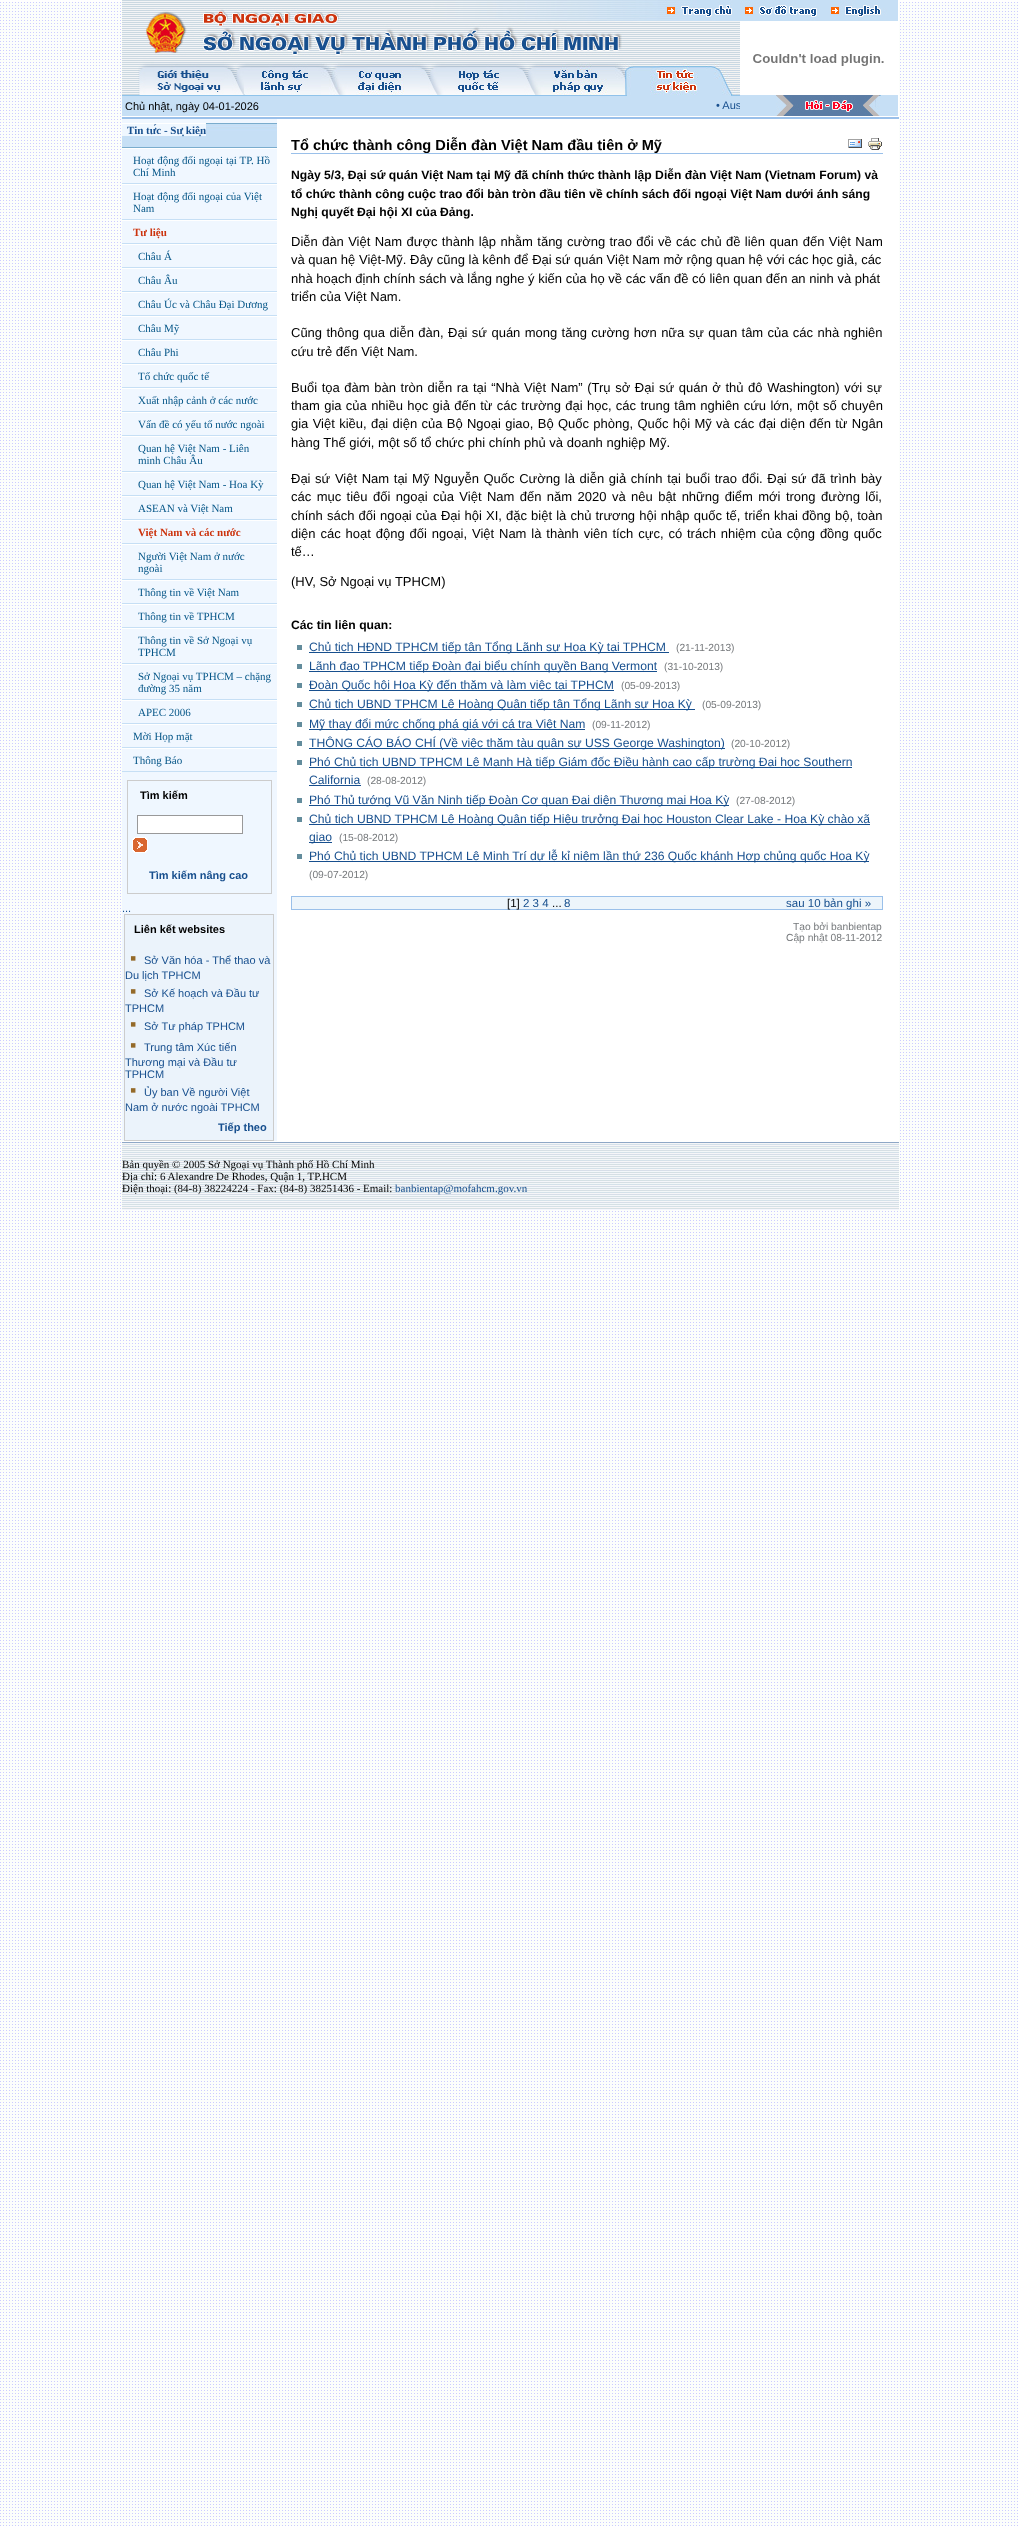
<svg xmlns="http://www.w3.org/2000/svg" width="1020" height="2526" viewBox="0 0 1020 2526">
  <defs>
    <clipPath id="clip1"><rect x="314" y="99" width="426" height="14"/></clipPath>
  </defs>
  <rect width="100%" height="100%" fill="#ffffff"/>
  <image x="0" y="2" width="1018" height="2524" href="img1.png"/>
  <rect x="122" y="2" width="777" height="1140" fill="#ffffff"/>
  <image x="122" y="0" width="77" height="63" href="img2.png"/>
  <image x="199" y="0" width="462" height="63" href="img3.png"/>
  <image x="733" y="0" width="7" height="21" href="img4.png"/>
  <image x="661" y="0" width="72" height="21" href="img5.png"/>
  <image x="820" y="0" width="3" height="21" href="img6.png"/>
  <image x="740" y="0" width="80" height="21" href="img7.png"/>
  <image x="823" y="0" width="75" height="21" href="img8.png"/>
  <image x="831" y="0" width="56" height="21" href="img9.png"/>
  <image x="661" y="21" width="79" height="42" href="img10.png"/>
  <image x="753" y="54" width="131" height="12" href="img11.png"/>
  <image x="122" y="63" width="16" height="33" href="img12.png"/>
  <image x="138" y="63" width="86" height="33" href="img13.png"/>
  <image x="224" y="63" width="20" height="33" href="img14.png"/>
  <image x="244" y="63" width="77" height="33" href="img15.png"/>
  <image x="321" y="63" width="19" height="33" href="img16.png"/>
  <image x="340" y="63" width="80" height="33" href="img17.png"/>
  <image x="420" y="63" width="18" height="33" href="img18.png"/>
  <image x="438" y="63" width="78" height="33" href="img19.png"/>
  <image x="516" y="63" width="20" height="33" href="img20.png"/>
  <image x="536" y="63" width="79" height="33" href="img21.png"/>
  <image x="615" y="63" width="19" height="33" href="img22.png"/>
  <image x="634" y="63" width="80" height="33" href="img23.png"/>
  <image x="714" y="63" width="26" height="33" href="img24.png"/>
  <rect x="122" y="96" width="618" height="20" fill="#c6dff5"/>
  <text x="125" y="110" font-family="Liberation Sans" font-size="11" fill="#000000">Chủ nhật, ngày 04-01-2026</text>
  <g clip-path="url(#clip1)">
    <text x="716" y="109" font-family="Liberation Sans" font-size="11" fill="#174f8e">• Aus</text>
  </g>
  <image x="880" y="96" width="1" height="20" href="img25.png"/>
  <image x="776" y="96" width="104" height="20" href="img26.png"/>
  <rect x="740" y="95" width="36" height="21" fill="#c6dff5"/>
  <image x="776" y="95" width="105" height="1" href="img27.png"/>
  <rect x="881" y="95" width="17" height="21" fill="#c6dff5"/>
  <rect x="122" y="117" width="777" height="2" fill="#9ac0ea"/>
  <rect x="122" y="119" width="155" height="1022" fill="#f0f7ff"/>
  <image x="122" y="123" width="155" height="25" href="img28.png"/>
  <rect x="122" y="124" width="84" height="12" fill="#eff7ff"/>
  <rect x="122" y="123" width="84" height="1" fill="#ffffff"/>
  <text x="127" y="134" font-family="Liberation Serif" font-size="11" font-weight="bold" fill="#174f8e">Tin tức - Sự kiện</text>
  <rect x="122" y="148" width="155" height="1" fill="#ffffff"/>
  <rect x="122" y="183" width="155" height="1" fill="#c6dff5"/>
  <text x="133" y="164" font-family="Liberation Serif" font-size="11" fill="#055688">Hoạt động đối ngoại tại TP. Hồ</text>
  <text x="133" y="176" font-family="Liberation Serif" font-size="11" fill="#055688">Chí Minh</text>
  <rect x="122" y="184" width="155" height="1" fill="#ffffff"/>
  <rect x="122" y="219" width="155" height="1" fill="#c6dff5"/>
  <text x="133" y="200" font-family="Liberation Serif" font-size="11" fill="#055688">Hoạt động đối ngoại của Việt</text>
  <text x="133" y="212" font-family="Liberation Serif" font-size="11" fill="#055688">Nam</text>
  <rect x="122" y="220" width="155" height="1" fill="#ffffff"/>
  <rect x="122" y="243" width="155" height="1" fill="#c6dff5"/>
  <text x="133" y="236" font-family="Liberation Serif" font-size="11" font-weight="bold" fill="#cc330d">Tư liệu</text>
  <rect x="122" y="244" width="155" height="1" fill="#ffffff"/>
  <rect x="122" y="267" width="155" height="1" fill="#c6dff5"/>
  <text x="138" y="260" font-family="Liberation Serif" font-size="11" fill="#055688">Châu Á</text>
  <rect x="122" y="268" width="155" height="1" fill="#ffffff"/>
  <rect x="122" y="291" width="155" height="1" fill="#c6dff5"/>
  <text x="138" y="284" font-family="Liberation Serif" font-size="11" fill="#055688">Châu Âu</text>
  <rect x="122" y="292" width="155" height="1" fill="#ffffff"/>
  <rect x="122" y="315" width="155" height="1" fill="#c6dff5"/>
  <text x="138" y="308" font-family="Liberation Serif" font-size="11" fill="#055688">Châu Úc và Châu Đại Dương</text>
  <rect x="122" y="316" width="155" height="1" fill="#ffffff"/>
  <rect x="122" y="339" width="155" height="1" fill="#c6dff5"/>
  <text x="138" y="332" font-family="Liberation Serif" font-size="11" fill="#055688">Châu Mỹ</text>
  <rect x="122" y="340" width="155" height="1" fill="#ffffff"/>
  <rect x="122" y="363" width="155" height="1" fill="#c6dff5"/>
  <text x="138" y="356" font-family="Liberation Serif" font-size="11" fill="#055688">Châu Phi</text>
  <rect x="122" y="364" width="155" height="1" fill="#ffffff"/>
  <rect x="122" y="387" width="155" height="1" fill="#c6dff5"/>
  <text x="138" y="380" font-family="Liberation Serif" font-size="11" fill="#055688">Tổ chức quốc tế</text>
  <rect x="122" y="388" width="155" height="1" fill="#ffffff"/>
  <rect x="122" y="411" width="155" height="1" fill="#c6dff5"/>
  <text x="138" y="404" font-family="Liberation Serif" font-size="11" fill="#055688">Xuất nhập cảnh ở các nước</text>
  <rect x="122" y="412" width="155" height="1" fill="#ffffff"/>
  <rect x="122" y="435" width="155" height="1" fill="#c6dff5"/>
  <text x="138" y="428" font-family="Liberation Serif" font-size="11" fill="#055688">Vấn đề có yếu tố nước ngoài</text>
  <rect x="122" y="436" width="155" height="1" fill="#ffffff"/>
  <rect x="122" y="471" width="155" height="1" fill="#c6dff5"/>
  <text x="138" y="452" font-family="Liberation Serif" font-size="11" fill="#055688">Quan hệ Việt Nam - Liên</text>
  <text x="138" y="464" font-family="Liberation Serif" font-size="11" fill="#055688">minh Châu Âu</text>
  <rect x="122" y="472" width="155" height="1" fill="#ffffff"/>
  <rect x="122" y="495" width="155" height="1" fill="#c6dff5"/>
  <text x="138" y="488" font-family="Liberation Serif" font-size="11" fill="#055688">Quan hệ Việt Nam - Hoa Kỳ</text>
  <rect x="122" y="496" width="155" height="1" fill="#ffffff"/>
  <rect x="122" y="519" width="155" height="1" fill="#c6dff5"/>
  <text x="138" y="512" font-family="Liberation Serif" font-size="11" fill="#055688">ASEAN và Việt Nam</text>
  <rect x="122" y="520" width="155" height="1" fill="#ffffff"/>
  <rect x="122" y="543" width="155" height="1" fill="#c6dff5"/>
  <text x="138" y="536" font-family="Liberation Serif" font-size="11" font-weight="bold" fill="#cc330d">Việt Nam và các nước</text>
  <rect x="122" y="544" width="155" height="1" fill="#ffffff"/>
  <rect x="122" y="579" width="155" height="1" fill="#c6dff5"/>
  <text x="138" y="560" font-family="Liberation Serif" font-size="11" fill="#055688">Người Việt Nam ở nước</text>
  <text x="138" y="572" font-family="Liberation Serif" font-size="11" fill="#055688">ngoài</text>
  <rect x="122" y="580" width="155" height="1" fill="#ffffff"/>
  <rect x="122" y="603" width="155" height="1" fill="#c6dff5"/>
  <text x="138" y="596" font-family="Liberation Serif" font-size="11" fill="#055688">Thông tin về Việt Nam</text>
  <rect x="122" y="604" width="155" height="1" fill="#ffffff"/>
  <rect x="122" y="627" width="155" height="1" fill="#c6dff5"/>
  <text x="138" y="620" font-family="Liberation Serif" font-size="11" fill="#055688">Thông tin về TPHCM</text>
  <rect x="122" y="628" width="155" height="1" fill="#ffffff"/>
  <rect x="122" y="663" width="155" height="1" fill="#c6dff5"/>
  <text x="138" y="644" font-family="Liberation Serif" font-size="11" fill="#055688">Thông tin về Sở Ngoại vụ</text>
  <text x="138" y="656" font-family="Liberation Serif" font-size="11" fill="#055688">TPHCM</text>
  <rect x="122" y="664" width="155" height="1" fill="#ffffff"/>
  <rect x="122" y="699" width="155" height="1" fill="#c6dff5"/>
  <text x="138" y="680" font-family="Liberation Serif" font-size="11" fill="#055688">Sở Ngoại vụ TPHCM – chặng</text>
  <text x="138" y="692" font-family="Liberation Serif" font-size="11" fill="#055688">đường 35 năm</text>
  <rect x="122" y="700" width="155" height="1" fill="#ffffff"/>
  <rect x="122" y="723" width="155" height="1" fill="#c6dff5"/>
  <text x="138" y="716" font-family="Liberation Serif" font-size="11" fill="#055688">APEC 2006</text>
  <rect x="122" y="724" width="155" height="1" fill="#ffffff"/>
  <rect x="122" y="747" width="155" height="1" fill="#c6dff5"/>
  <text x="133" y="740" font-family="Liberation Serif" font-size="11" fill="#055688">Mời Họp mặt</text>
  <rect x="122" y="748" width="155" height="1" fill="#ffffff"/>
  <rect x="122" y="771" width="155" height="1" fill="#c6dff5"/>
  <text x="133" y="764" font-family="Liberation Serif" font-size="11" fill="#055688">Thông Báo</text>
  <rect x="127" y="780" width="145" height="114" fill="#cccccc"/>
  <rect x="128" y="781" width="143" height="112" fill="#eff7ff"/>
  <text x="140" y="799" font-family="Liberation Sans" font-size="11" font-weight="bold" fill="#000000">Tìm kiếm</text>
  <rect x="137.5" y="815.5" width="105" height="18" fill="#ffffff" stroke="#999999"/>
  <image x="132" y="837" width="16" height="16" href="img29.png"/>
  <text x="149" y="879" font-family="Liberation Sans" font-size="11" font-weight="bold" fill="#174f8e">Tìm kiếm nâng cao</text>
  <text x="122" y="912" font-family="Liberation Sans" font-size="11" fill="#174f8e">...</text>
  <rect x="124" y="914" width="150" height="227" fill="#cccccc"/>
  <rect x="125" y="915" width="148" height="225" fill="#ebf3fb"/>
  <text x="134" y="933" font-family="Liberation Sans" font-size="11" font-weight="bold" fill="#000000">Liên kết websites</text>
  <text x="130" y="964" font-family="Liberation Sans" font-size="18" fill="#946a29">▪</text>
  <text x="144" y="964" font-family="Liberation Sans" font-size="11" fill="#174f8e">Sở Văn hóa - Thể thao và</text>
  <text x="125" y="979" font-family="Liberation Sans" font-size="11" fill="#174f8e">Du lịch TPHCM</text>
  <text x="130" y="997" font-family="Liberation Sans" font-size="18" fill="#946a29">▪</text>
  <text x="144" y="997" font-family="Liberation Sans" font-size="11" fill="#174f8e">Sở Kế hoạch và Đầu tư</text>
  <text x="125" y="1012" font-family="Liberation Sans" font-size="11" fill="#174f8e">TPHCM</text>
  <text x="130" y="1030" font-family="Liberation Sans" font-size="18" fill="#946a29">▪</text>
  <text x="144" y="1030" font-family="Liberation Sans" font-size="11" fill="#174f8e">Sở Tư pháp TPHCM</text>
  <text x="130" y="1051" font-family="Liberation Sans" font-size="18" fill="#946a29">▪</text>
  <text x="144" y="1051" font-family="Liberation Sans" font-size="11" fill="#174f8e">Trung tâm Xúc tiến</text>
  <text x="125" y="1066" font-family="Liberation Sans" font-size="11" fill="#174f8e">Thương mại và Đầu tư</text>
  <text x="125" y="1078" font-family="Liberation Sans" font-size="11" fill="#174f8e">TPHCM</text>
  <text x="130" y="1096" font-family="Liberation Sans" font-size="18" fill="#946a29">▪</text>
  <text x="144" y="1096" font-family="Liberation Sans" font-size="11" fill="#174f8e">Ủy ban Về người Việt</text>
  <text x="125" y="1111" font-family="Liberation Sans" font-size="11" fill="#174f8e">Nam ở nước ngoài TPHCM</text>
  <text x="218" y="1131" font-family="Liberation Sans" font-size="11" font-weight="bold" fill="#174f8e">Tiếp theo</text>
  <rect x="291" y="153" width="592" height="1" fill="#9ac0ea"/>
  <text x="291" y="150" font-family="Liberation Sans" font-size="14.6" font-weight="bold" fill="#000000">Tổ chức thành công Diễn đàn Việt Nam đầu tiên ở Mỹ</text>
  <image x="848" y="139" width="14" height="9" href="img30.png"/>
  <image x="868" y="138" width="14" height="12" href="img31.png"/>
  <text x="291" y="179" font-family="Liberation Sans" font-size="12.15" font-weight="bold" fill="#000000">Ngày 5/3, Đại sứ quán Việt Nam tại Mỹ đã chính thức thành lập Diễn đàn Việt Nam (Vietnam Forum) và</text>
  <text x="291" y="198" font-family="Liberation Sans" font-size="12.15" font-weight="bold" fill="#000000">tổ chức thành công cuộc trao đổi bàn tròn đầu tiên về chính sách đối ngoại Việt Nam dưới ánh sáng</text>
  <text x="291" y="216" font-family="Liberation Sans" font-size="12.15" font-weight="bold" fill="#000000">Nghị quyết Đại hội XI của Đảng.</text>
  <text x="291" y="246" word-spacing="0.75" font-family="Liberation Sans" font-size="13" fill="#000000">Diễn đàn Việt Nam được thành lập nhằm tăng cường trao đổi về các chủ đề liên quan đến Việt Nam</text>
  <text x="291" y="264" font-family="Liberation Sans" font-size="13" fill="#000000">và quan hệ Việt-Mỹ. Đây cũng là kênh để Đại sứ quán Việt Nam mở rộng quan hệ với các học giả, các</text>
  <text x="291" y="283" font-family="Liberation Sans" font-size="13" fill="#000000">nhà hoạch định chính sách và lắng nghe ý kiến của họ về các vấn đề có liên quan đến an ninh và phát</text>
  <text x="291" y="301" font-family="Liberation Sans" font-size="13" fill="#000000">triển của Việt Nam.</text>
  <text x="291" y="337" word-spacing="0.75" font-family="Liberation Sans" font-size="13" fill="#000000">Cũng thông qua diễn đàn, Đại sứ quán mong tăng cường hơn nữa sự quan tâm của các nhà nghiên</text>
  <text x="291" y="356" font-family="Liberation Sans" font-size="13" fill="#000000">cứu trẻ đến Việt Nam.</text>
  <text x="291" y="392" word-spacing="1" font-family="Liberation Sans" font-size="13" fill="#000000">Buổi tọa đàm bàn tròn diễn ra tại “Nhà Việt Nam” (Trụ sở Đại sứ quán ở thủ đô Washington) với sự</text>
  <text x="291" y="410" word-spacing="0.7" font-family="Liberation Sans" font-size="13" fill="#000000">tham gia của nhiều học giả đến từ các trường đại học, các trung tâm nghiên cứu lớn, một số chuyên</text>
  <text x="291" y="428" word-spacing="0.7" font-family="Liberation Sans" font-size="13" fill="#000000">gia Việt kiều, đại diện của Bộ Ngoại giao, Bộ Quốc phòng, Quốc hội Mỹ và các đại diện đến từ Ngân</text>
  <text x="291" y="447" font-family="Liberation Sans" font-size="13" fill="#000000">hàng Thế giới, một số tổ chức phi chính phủ và doanh nghiệp Mỹ.</text>
  <text x="291" y="483" word-spacing="1" font-family="Liberation Sans" font-size="13" fill="#000000">Đại sứ Việt Nam tại Mỹ Nguyễn Quốc Cường là diễn giả chính tại buổi trao đổi. Đại sứ đã trình bày</text>
  <text x="291" y="501" word-spacing="1.8" font-family="Liberation Sans" font-size="13" fill="#000000">các mục tiêu đối ngoại của Việt Nam đến năm 2020 và nêu bật những điểm mới trong đường lối,</text>
  <text x="291" y="520" word-spacing="0.5" font-family="Liberation Sans" font-size="13" fill="#000000">chính sách đối ngoại của Đại hội XI, đặc biệt là chủ trương hội nhập quốc tế, triển khai đồng bộ, toàn</text>
  <text x="291" y="538" word-spacing="1.25" font-family="Liberation Sans" font-size="13" fill="#000000">diện các hoạt động đối ngoại, Việt Nam là thành viên tích cực, có trách nhiệm của cộng đồng quốc</text>
  <text x="291" y="556" font-family="Liberation Sans" font-size="13" fill="#000000">tế…</text>
  <text x="291" y="586" font-family="Liberation Sans" font-size="13" fill="#000000">(HV, Sở Ngoại vụ TPHCM)</text>
  <text x="291" y="629" font-family="Liberation Sans" font-size="12.15" font-weight="bold" fill="#000000">Các tin liên quan:</text>
  <rect x="297" y="645" width="5" height="5" fill="#638c9c"/>
  <rect x="309" y="652" width="360" height="1" fill="#174f8e"/>
  <text x="309" y="651" font-family="Liberation Sans" font-size="12.15" fill="#174f8e">Chủ tịch HĐND TPHCM tiếp tân Tổng Lãnh sự Hoa Kỳ tại TPHCM</text>
  <text x="676" y="651" font-family="Liberation Sans" font-size="10.25" fill="#76797c">(21-11-2013)</text>
  <rect x="297" y="664" width="5" height="5" fill="#638c9c"/>
  <rect x="309" y="671" width="348" height="1" fill="#174f8e"/>
  <text x="309" y="670" font-family="Liberation Sans" font-size="12.15" fill="#174f8e">Lãnh đạo TPHCM tiếp Đoàn đại biểu chính quyền Bang Vermont</text>
  <text x="664" y="670" font-family="Liberation Sans" font-size="10.25" fill="#76797c">(31-10-2013)</text>
  <rect x="297" y="683" width="5" height="5" fill="#638c9c"/>
  <rect x="309" y="690" width="305" height="1" fill="#174f8e"/>
  <text x="309" y="689" font-family="Liberation Sans" font-size="12.15" fill="#174f8e">Đoàn Quốc hội Hoa Kỳ đến thăm và làm việc tại TPHCM</text>
  <text x="621" y="689" font-family="Liberation Sans" font-size="10.25" fill="#76797c">(05-09-2013)</text>
  <rect x="297" y="702" width="5" height="5" fill="#638c9c"/>
  <rect x="309" y="709" width="386" height="1" fill="#174f8e"/>
  <text x="309" y="708" font-family="Liberation Sans" font-size="12.15" fill="#174f8e">Chủ tịch UBND TPHCM Lê Hoàng Quân tiếp tân Tổng Lãnh sự Hoa Kỳ</text>
  <text x="702" y="708" font-family="Liberation Sans" font-size="10.25" fill="#76797c">(05-09-2013)</text>
  <rect x="297" y="722" width="5" height="5" fill="#638c9c"/>
  <rect x="309" y="729" width="276" height="1" fill="#174f8e"/>
  <text x="309" y="728" font-family="Liberation Sans" font-size="12.15" fill="#174f8e">Mỹ thay đổi mức chống phá giá với cá tra Việt Nam</text>
  <text x="592" y="728" font-family="Liberation Sans" font-size="10.25" fill="#76797c">(09-11-2012)</text>
  <rect x="297" y="741" width="5" height="5" fill="#638c9c"/>
  <rect x="309" y="748" width="416" height="1" fill="#174f8e"/>
  <text x="309" y="747" font-family="Liberation Sans" font-size="12.15" fill="#174f8e">THÔNG CÁO BÁO CHÍ (Về việc thăm tàu quân sự USS George Washington)</text>
  <text x="731" y="747" font-family="Liberation Sans" font-size="10.25" fill="#76797c">(20-10-2012)</text>
  <rect x="297" y="760" width="5" height="5" fill="#638c9c"/>
  <rect x="309" y="767" width="543" height="1" fill="#174f8e"/>
  <text x="309" y="766" font-family="Liberation Sans" font-size="12.15" fill="#174f8e">Phó Chủ tịch UBND TPHCM Lê Mạnh Hà tiếp Giám đốc Điều hành cao cấp trường Đại học Southern</text>
  <text x="309" y="784" font-family="Liberation Sans" font-size="12.15" fill="#174f8e">California</text>
  <rect x="309" y="785" width="52" height="1" fill="#174f8e"/>
  <text x="367" y="784" font-family="Liberation Sans" font-size="10.25" fill="#76797c">(28-08-2012)</text>
  <rect x="297" y="798" width="5" height="5" fill="#638c9c"/>
  <rect x="309" y="805" width="420" height="1" fill="#174f8e"/>
  <text x="309" y="804" font-family="Liberation Sans" font-size="12.15" fill="#174f8e">Phó Thủ tướng Vũ Văn Ninh tiếp Đoàn Cơ quan Đại diện Thương mại Hoa Kỳ</text>
  <text x="736" y="804" font-family="Liberation Sans" font-size="10.25" fill="#76797c">(27-08-2012)</text>
  <rect x="297" y="817" width="5" height="5" fill="#638c9c"/>
  <rect x="309" y="824" width="561" height="1" fill="#174f8e"/>
  <text x="309" y="823" font-family="Liberation Sans" font-size="12.15" fill="#174f8e">Chủ tịch UBND TPHCM Lê Hoàng Quân tiếp Hiệu trưởng Đại học Houston Clear Lake - Hoa Kỳ chào xã</text>
  <rect x="309" y="842" width="23" height="1" fill="#174f8e"/>
  <text x="309" y="841" font-family="Liberation Sans" font-size="12.15" fill="#174f8e">giao</text>
  <text x="339" y="841" font-family="Liberation Sans" font-size="10.25" fill="#76797c">(15-08-2012)</text>
  <rect x="297" y="854" width="5" height="5" fill="#638c9c"/>
  <rect x="309" y="861" width="560" height="1" fill="#174f8e"/>
  <text x="309" y="860" font-family="Liberation Sans" font-size="12.15" fill="#174f8e">Phó Chủ tịch UBND TPHCM Lê Minh Trí dự lễ kỉ niệm lần thứ 236 Quốc khánh Hợp chủng quốc Hoa Kỳ</text>
  <text x="309" y="878" font-family="Liberation Sans" font-size="10.25" fill="#76797c">(09-07-2012)</text>
  <rect x="291.5" y="896.5" width="591" height="13" fill="#edf5fb" stroke="#9ac0ea"/>
  <text x="507" y="907" font-family="Liberation Sans" font-size="11.5" fill="#000000">[1]</text>
  <text x="523" y="907" font-family="Liberation Sans" font-size="11.5" fill="#174f8e">2 3 4</text>
  <text x="552" y="907" font-family="Liberation Sans" font-size="11.5" fill="#000000">...</text>
  <text x="564" y="907" font-family="Liberation Sans" font-size="11.5" fill="#174f8e">8</text>
  <text x="786" y="907" font-family="Liberation Sans" font-size="11.5" fill="#174f8e">sau 10 bản ghi »</text>
  <text x="793" y="930" font-family="Liberation Sans" font-size="10.25" fill="#76797c">Tạo bởi banbientap</text>
  <text x="786" y="941" font-family="Liberation Sans" font-size="10.25" fill="#76797c">Cập nhật 08-11-2012</text>
  <image x="122" y="1142" width="777" height="68" href="img32.png"/>
  <text x="122" y="1168" font-family="Liberation Serif" font-size="11" fill="#000000">Bản quyền © 2005 Sở Ngoại vụ Thành phố Hồ Chí Minh</text>
  <text x="122" y="1180" font-family="Liberation Serif" font-size="11" fill="#000000">Địa chỉ: 6 Alexandre De Rhodes, Quận 1, TP.HCM</text>
  <text x="122" y="1192" font-family="Liberation Serif" font-size="11" fill="#000000">Điện thoại: (84-8) 38224224 - Fax: (84-8) 38251436 - Email:</text>
  <text x="395" y="1192" font-family="Liberation Serif" font-size="11" fill="#174f8e">banbientap@mofahcm.gov.vn</text>
</svg>
